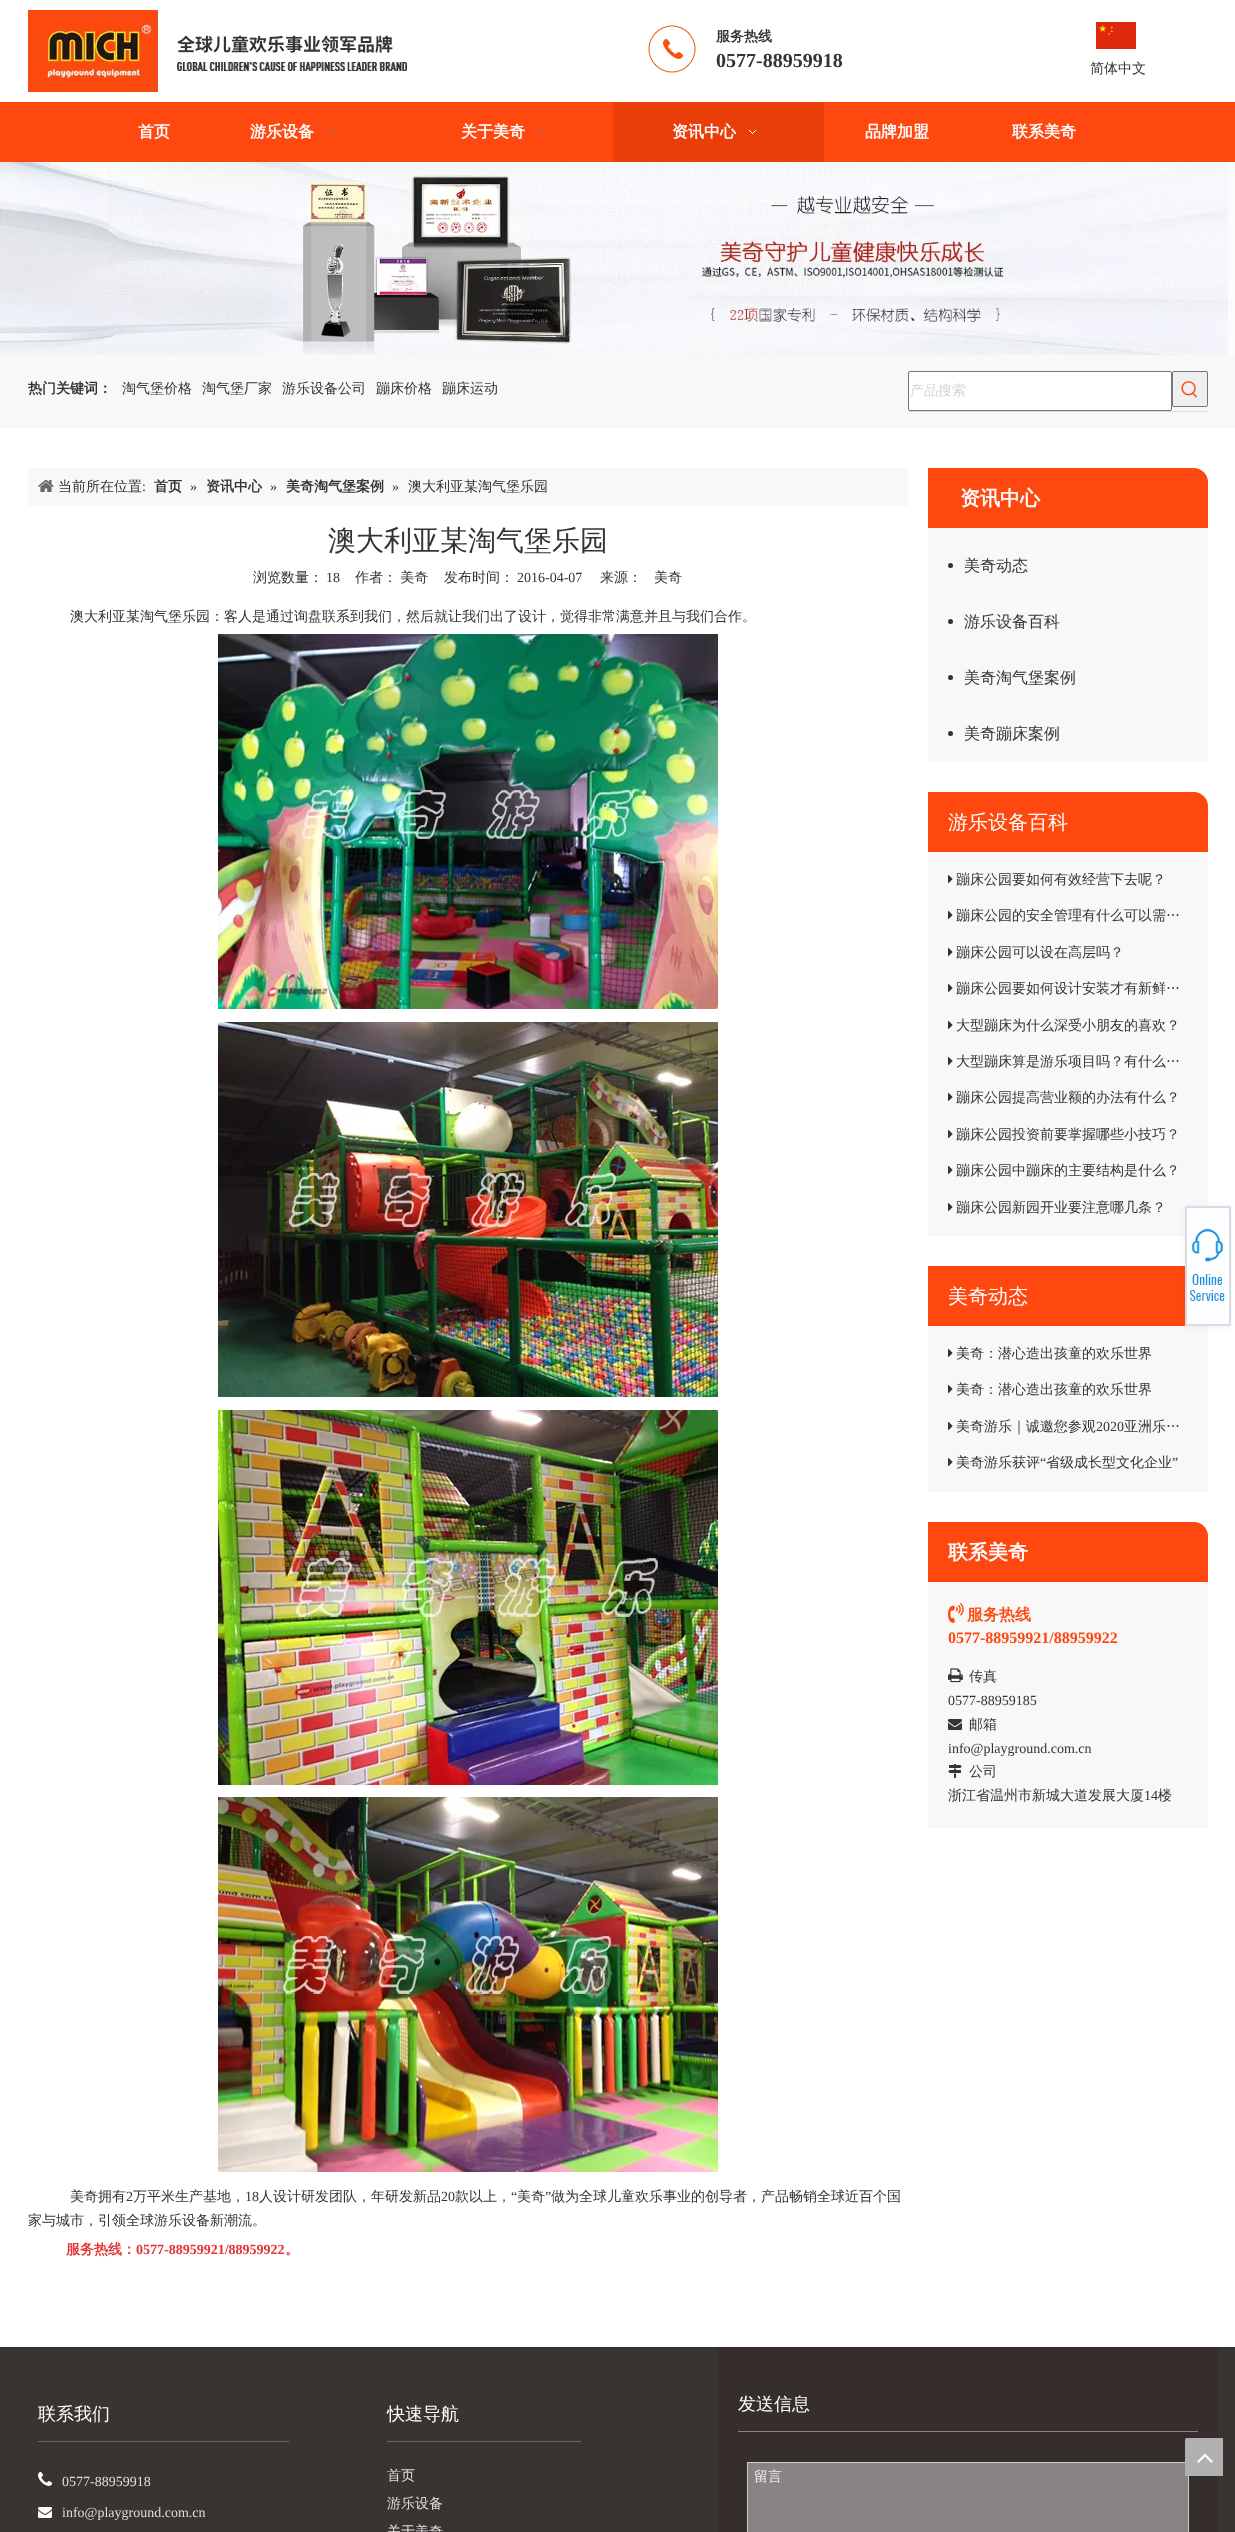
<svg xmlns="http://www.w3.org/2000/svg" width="1235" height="2532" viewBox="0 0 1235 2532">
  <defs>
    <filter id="blur1" x="-50%" y="-200%" width="200%" height="500%"><feGaussianBlur stdDeviation="3"/></filter>
  </defs>
  <rect width="100%" height="100%" fill="#ffffff"/>
  <image x="28" y="10" width="379" height="82" href="img1.png"/>
  <image x="648" y="25" width="48" height="48" href="img2.png"/>
  <text x="716" y="41" font-family="WenQuanYi Zen Hei" font-size="14" font-weight="bold" fill="#353333">服务热线</text>
  <text x="716" y="67" font-family="Liberation Serif" font-size="20" font-weight="bold" fill="#353333">0577-88959918</text>
  <image x="1096" y="22" width="40" height="27" href="img3.png"/>
  <text x="1090" y="73" font-family="WenQuanYi Zen Hei" font-size="14" font-weight="500" fill="#353333">简体中文</text>
  <rect x="0" y="102" width="1235" height="60" fill="#fe480f"/>
  <text x="138" y="137" font-family="WenQuanYi Zen Hei" font-size="16" font-weight="bold" fill="#ffffff">首页</text>
  <text x="250" y="137" font-family="WenQuanYi Zen Hei" font-size="16" font-weight="bold" fill="#ffffff">游乐设备</text>
  <image x="327" y="130" width="7" height="4" href="img4.png"/>
  <text x="461" y="137" font-family="WenQuanYi Zen Hei" font-size="16" font-weight="bold" fill="#ffffff">关于美奇</text>
  <image x="538" y="130" width="7" height="4" href="img4.png"/>
  <rect x="613" y="102" width="211" height="60" fill="#e93e09"/>
  <text x="672" y="137" font-family="WenQuanYi Zen Hei" font-size="16" font-weight="bold" fill="#ffffff">资讯中心</text>
  <image x="749" y="130" width="7" height="4" href="img5.png"/>
  <text x="865" y="137" font-family="WenQuanYi Zen Hei" font-size="16" font-weight="bold" fill="#ffffff">品牌加盟</text>
  <text x="1012" y="137" font-family="WenQuanYi Zen Hei" font-size="16" font-weight="bold" fill="#ffffff">联系美奇</text>
  <image x="0" y="162" width="1235" height="193" href="img6.png"/>
  <rect x="0" y="355" width="1235" height="73" fill="#f8f8f8"/>
  <text x="28" y="393" font-family="WenQuanYi Zen Hei" font-size="14" font-weight="bold" fill="#353333">热门关键词：</text>
  <text x="122" y="393" font-family="WenQuanYi Zen Hei" font-size="14" font-weight="500" fill="#353333">淘气堡价格</text>
  <text x="202" y="393" font-family="WenQuanYi Zen Hei" font-size="14" font-weight="500" fill="#353333">淘气堡厂家</text>
  <text x="282" y="393" font-family="WenQuanYi Zen Hei" font-size="14" font-weight="500" fill="#353333">游乐设备公司</text>
  <text x="376" y="393" font-family="WenQuanYi Zen Hei" font-size="14" font-weight="500" fill="#353333">蹦床价格</text>
  <text x="442" y="393" font-family="WenQuanYi Zen Hei" font-size="14" font-weight="500" fill="#353333">蹦床运动</text>
  <rect x="908" y="411" width="300" height="1" fill="#dadada"/>
  <rect x="908.5" y="371.5" width="263" height="39" rx="1.5" fill="#ffffff" stroke="#767676"/>
  <text x="910" y="395" font-family="WenQuanYi Zen Hei" font-size="14" font-weight="500" fill="#d4d4d4">产品搜索</text>
  <rect x="1172.5" y="371.5" width="35" height="35" rx="1.5" fill="#efefef" stroke="#767676"/>
  <image x="1181" y="381" width="17" height="17" href="img7.png"/>
  <rect x="28" y="468" width="880" height="38" fill="#f8f8f8"/>
  <image x="38" y="480" width="16" height="12" href="img8.png"/>
  <text x="58" y="491" font-family="WenQuanYi Zen Hei" font-size="14" font-weight="500" fill="#353333">当前所在位置</text>
  <text x="142" y="491" font-family="Liberation Serif" font-size="14" fill="#353333">:</text>
  <text x="154" y="491" font-family="WenQuanYi Zen Hei" font-size="14" font-weight="bold" fill="#353333">首页</text>
  <text x="190" y="491" font-family="Liberation Serif" font-size="14" fill="#353333">»</text>
  <text x="206" y="491" font-family="WenQuanYi Zen Hei" font-size="14" font-weight="bold" fill="#353333">资讯中心</text>
  <text x="270" y="491" font-family="Liberation Serif" font-size="14" fill="#353333">»</text>
  <text x="286" y="491" font-family="WenQuanYi Zen Hei" font-size="14" font-weight="bold" fill="#353333">美奇淘气堡案例</text>
  <text x="392" y="491" font-family="Liberation Serif" font-size="14" fill="#353333">»</text>
  <text x="408" y="491" font-family="WenQuanYi Zen Hei" font-size="14" font-weight="500" fill="#353333">澳大利亚某淘气堡乐园</text>
  <text x="328" y="550" font-family="WenQuanYi Zen Hei" font-size="28" font-weight="500" fill="#353333">澳大利亚某淘气堡乐园</text>
  <text x="253" y="582" font-family="WenQuanYi Zen Hei" font-size="14" font-weight="500" fill="#353333">浏览数量：</text>
  <text x="326" y="582" font-family="Liberation Serif" font-size="14" fill="#353333">18</text>
  <text x="355" y="582" word-spacing="-1" font-family="WenQuanYi Zen Hei" font-size="14" font-weight="500" fill="#353333">作者： 美奇</text>
  <text x="444" y="582" font-family="WenQuanYi Zen Hei" font-size="14" font-weight="500" fill="#353333">发布时间：</text>
  <text x="517" y="582" font-family="Liberation Serif" font-size="14" fill="#353333">2016-04-07</text>
  <text x="600" y="582" font-family="WenQuanYi Zen Hei" font-size="14" font-weight="500" fill="#353333">来源：</text>
  <text x="654" y="582" font-family="WenQuanYi Zen Hei" font-size="14" font-weight="500" fill="#353333">美奇</text>
  <text x="70" y="621" font-family="WenQuanYi Zen Hei" font-size="14" font-weight="500" fill="#353333">澳大利亚某淘气堡乐园：客人是通过询盘联系到我们，然后就让我们出了设计，觉得非常满意并且与我们合作。</text>
  <image x="218" y="634" width="500" height="375" href="img9.png"/>
  <image x="218" y="1022" width="500" height="375" href="img10.png"/>
  <image x="218" y="1410" width="500" height="375" href="img11.png"/>
  <image x="218" y="1797" width="500" height="375" href="img12.png"/>
  <text x="70" y="2201" font-family="WenQuanYi Zen Hei" font-size="14" font-weight="500" fill="#353333">美奇拥有</text>
  <text x="126" y="2201" font-family="Liberation Serif" font-size="14" fill="#353333">2</text>
  <text x="133" y="2201" font-family="WenQuanYi Zen Hei" font-size="14" font-weight="500" fill="#353333">万平米生产基地，</text>
  <text x="245" y="2201" font-family="Liberation Serif" font-size="14" fill="#353333">18</text>
  <text x="259" y="2201" font-family="WenQuanYi Zen Hei" font-size="14" font-weight="500" fill="#353333">人设计研发团队，年研发新品</text>
  <text x="441" y="2201" font-family="Liberation Serif" font-size="14" fill="#353333">20</text>
  <text x="455" y="2201" font-family="WenQuanYi Zen Hei" font-size="14" font-weight="500" fill="#353333">款以上，</text>
  <text x="511" y="2201" font-family="Liberation Serif" font-size="14" fill="#353333">“</text>
  <text x="517" y="2201" font-family="WenQuanYi Zen Hei" font-size="14" font-weight="500" fill="#353333">美奇</text>
  <text x="545" y="2201" font-family="Liberation Serif" font-size="14" fill="#353333">”</text>
  <text x="551" y="2201" font-family="WenQuanYi Zen Hei" font-size="14" font-weight="500" fill="#353333">做为全球儿童欢乐事业的创导者，产品畅销全球近百个国</text>
  <text x="28" y="2225" font-family="WenQuanYi Zen Hei" font-size="14" font-weight="500" fill="#353333">家与城市，引领全球游乐设备新潮流。</text>
  <text x="66" y="2254" font-family="WenQuanYi Zen Hei" font-size="14" font-weight="bold" fill="#e53333">服务热线：</text>
  <text x="136" y="2254" font-family="Liberation Serif" font-size="14" font-weight="bold" fill="#e53333">0577-88959921/88959922</text>
  <text x="285" y="2254" font-family="WenQuanYi Zen Hei" font-size="14" font-weight="bold" fill="#e53333">。</text>
  <path d="M928 468H1194C1201.5 468 1208 474.5 1208 482V528H928Z" fill="#fe480f"/>
  <text x="960" y="505" font-family="WenQuanYi Zen Hei" font-size="20" font-weight="bold" fill="#ffffff">资讯中心</text>
  <rect x="928" y="528" width="280" height="234" fill="#f8f8f8"/>
  <circle cx="950.5" cy="565.5" r="2.5" fill="#333333"/>
  <text x="964" y="571" font-family="WenQuanYi Zen Hei" font-size="16" font-weight="500" fill="#353333">美奇动态</text>
  <circle cx="950.5" cy="621.5" r="2.5" fill="#333333"/>
  <text x="964" y="627" font-family="WenQuanYi Zen Hei" font-size="16" font-weight="500" fill="#353333">游乐设备百科</text>
  <circle cx="950.5" cy="677.5" r="2.5" fill="#333333"/>
  <text x="964" y="683" font-family="WenQuanYi Zen Hei" font-size="16" font-weight="500" fill="#353333">美奇淘气堡案例</text>
  <circle cx="950.5" cy="733.5" r="2.5" fill="#333333"/>
  <text x="964" y="739" font-family="WenQuanYi Zen Hei" font-size="16" font-weight="500" fill="#353333">美奇蹦床案例</text>
  <path d="M928 792H1194C1201.5 792 1208 798.5 1208 806V852H928Z" fill="#fe480f"/>
  <text x="948" y="829" font-family="WenQuanYi Zen Hei" font-size="20" font-weight="500" fill="#ffffff">游乐设备百科</text>
  <rect x="928" y="852" width="280" height="384" fill="#f8f8f8"/>
  <image x="948" y="875" width="5" height="8" href="img13.png"/>
  <text x="956" y="884" font-family="WenQuanYi Zen Hei" font-size="14" font-weight="500" fill="#353333">蹦床公园要如何有效经营下去呢？</text>
  <image x="948" y="911" width="5" height="8" href="img13.png"/>
  <text x="956" y="920" font-family="WenQuanYi Zen Hei" font-size="14" font-weight="500" fill="#353333">蹦床公园的安全管理有什么可以需…</text>
  <image x="948" y="948" width="5" height="8" href="img13.png"/>
  <text x="956" y="957" font-family="WenQuanYi Zen Hei" font-size="14" font-weight="500" fill="#353333">蹦床公园可以设在高层吗？</text>
  <image x="948" y="984" width="5" height="8" href="img13.png"/>
  <text x="956" y="993" font-family="WenQuanYi Zen Hei" font-size="14" font-weight="500" fill="#353333">蹦床公园要如何设计安装才有新鲜…</text>
  <image x="948" y="1021" width="5" height="8" href="img13.png"/>
  <text x="956" y="1030" font-family="WenQuanYi Zen Hei" font-size="14" font-weight="500" fill="#353333">大型蹦床为什么深受小朋友的喜欢？</text>
  <image x="948" y="1057" width="5" height="8" href="img13.png"/>
  <text x="956" y="1066" font-family="WenQuanYi Zen Hei" font-size="14" font-weight="500" fill="#353333">大型蹦床算是游乐项目吗？有什么…</text>
  <image x="948" y="1093" width="5" height="8" href="img13.png"/>
  <text x="956" y="1102" font-family="WenQuanYi Zen Hei" font-size="14" font-weight="500" fill="#353333">蹦床公园提高营业额的办法有什么？</text>
  <image x="948" y="1130" width="5" height="8" href="img13.png"/>
  <text x="956" y="1139" font-family="WenQuanYi Zen Hei" font-size="14" font-weight="500" fill="#353333">蹦床公园投资前要掌握哪些小技巧？</text>
  <image x="948" y="1166" width="5" height="8" href="img13.png"/>
  <text x="956" y="1175" font-family="WenQuanYi Zen Hei" font-size="14" font-weight="500" fill="#353333">蹦床公园中蹦床的主要结构是什么？</text>
  <image x="948" y="1203" width="5" height="8" href="img13.png"/>
  <text x="956" y="1212" font-family="WenQuanYi Zen Hei" font-size="14" font-weight="500" fill="#353333">蹦床公园新园开业要注意哪几条？</text>
  <rect x="928" y="1266" width="257" height="60" fill="#fe480f"/>
  <text x="948" y="1303" font-family="WenQuanYi Zen Hei" font-size="20" font-weight="500" fill="#ffffff">美奇动态</text>
  <rect x="928" y="1326" width="280" height="166" fill="#f8f8f8"/>
  <image x="948" y="1349" width="5" height="8" href="img13.png"/>
  <text x="956" y="1358" font-family="WenQuanYi Zen Hei" font-size="14" font-weight="500" fill="#353333">美奇：潜心造出孩童的欢乐世界</text>
  <image x="948" y="1385" width="5" height="8" href="img13.png"/>
  <text x="956" y="1394" font-family="WenQuanYi Zen Hei" font-size="14" font-weight="500" fill="#353333">美奇：潜心造出孩童的欢乐世界</text>
  <image x="948" y="1422" width="5" height="8" href="img13.png"/>
  <text x="956" y="1431" font-family="WenQuanYi Zen Hei" font-size="14" font-weight="500" fill="#353333">美奇游乐｜诚邀您参观</text>
  <text x="1096" y="1431" font-family="Liberation Serif" font-size="14" fill="#353333">2020</text>
  <text x="1124" y="1431" font-family="WenQuanYi Zen Hei" font-size="14" font-weight="500" fill="#353333">亚洲乐…</text>
  <image x="948" y="1458" width="5" height="8" href="img13.png"/>
  <text x="956" y="1467" font-family="WenQuanYi Zen Hei" font-size="14" font-weight="500" fill="#353333">美奇游乐获评</text>
  <text x="1040" y="1467" font-family="Liberation Serif" font-size="14" fill="#353333">“</text>
  <text x="1046" y="1467" font-family="WenQuanYi Zen Hei" font-size="14" font-weight="500" fill="#353333">省级成长型文化企业</text>
  <text x="1172" y="1467" font-family="Liberation Serif" font-size="14" fill="#353333">”</text>
  <path d="M928 1522H1194C1201.5 1522 1208 1528.5 1208 1536V1582H928Z" fill="#fe480f"/>
  <text x="948" y="1559" font-family="WenQuanYi Zen Hei" font-size="20" font-weight="bold" fill="#ffffff">联系美奇</text>
  <rect x="928" y="1582" width="280" height="246" fill="#f8f8f8"/>
  <image x="948" y="1603" width="16" height="20" href="img14.png"/>
  <text x="967" y="1620" font-family="WenQuanYi Zen Hei" font-size="16" font-weight="bold" fill="#fe480f">服务热线</text>
  <text x="948" y="1643" font-family="Liberation Serif" font-size="16" font-weight="bold" fill="#fe480f">0577-88959921/88959922</text>
  <image x="948" y="1668" width="15" height="15" href="img15.png"/>
  <text x="969" y="1681" font-family="WenQuanYi Zen Hei" font-size="14" font-weight="500" fill="#353333">传真</text>
  <text x="948" y="1705" font-family="Liberation Serif" font-size="14" fill="#353333">0577-88959185</text>
  <image x="948" y="1719" width="14" height="11" href="img16.png"/>
  <text x="969" y="1729" font-family="WenQuanYi Zen Hei" font-size="14" font-weight="500" fill="#353333">邮箱</text>
  <text x="948" y="1753" font-family="Liberation Serif" font-size="14" fill="#353333">info@playground.com.cn</text>
  <image x="948" y="1764" width="14" height="14" href="img17.png"/>
  <text x="969" y="1776" font-family="WenQuanYi Zen Hei" font-size="14" font-weight="500" fill="#353333">公司</text>
  <text x="948" y="1800" font-family="WenQuanYi Zen Hei" font-size="14" font-weight="500" fill="#353333">浙江省温州市新城大道发展大厦</text>
  <text x="1144" y="1800" font-family="Liberation Serif" font-size="14" fill="#353333">14</text>
  <text x="1158" y="1800" font-family="WenQuanYi Zen Hei" font-size="14" font-weight="500" fill="#353333">楼</text>
  <rect x="0" y="2347" width="1235" height="185" fill="#393331"/>
  <rect x="38" y="2441" width="251" height="1" fill="#6b6665"/>
  <text x="38" y="2420" font-family="WenQuanYi Zen Hei" font-size="18" font-weight="500" fill="#ffffff">联系我们</text>
  <image x="38" y="2471" width="15" height="15" href="img18.png"/>
  <text x="62" y="2486" font-family="Liberation Serif" font-size="14" fill="#dfdede">0577-88959918</text>
  <image x="38" y="2507" width="14" height="11" href="img19.png"/>
  <text x="62" y="2517" font-family="Liberation Serif" font-size="14" fill="#dfdede">info@playground.com.cn</text>
  <rect x="1185" y="1207" width="46" height="120" fill="#000000" fill-opacity="0.06" filter="url(#blur1)"/>
  <image x="1186" y="1207" width="44" height="118" href="img20.png"/>
  <rect x="1185.5" y="1206.5" width="45" height="119" fill="none" stroke="#d8dde6"/>
  <rect x="387" y="2441" width="194" height="1" fill="#6b6665"/>
  <text x="387" y="2420" font-family="WenQuanYi Zen Hei" font-size="18" font-weight="500" fill="#ffffff">快速导航</text>
  <text x="387" y="2480" font-family="WenQuanYi Zen Hei" font-size="14" font-weight="500" fill="#dfdede">首页</text>
  <text x="387" y="2508" font-family="WenQuanYi Zen Hei" font-size="14" font-weight="500" fill="#dfdede">游乐设备</text>
  <text x="387" y="2536" font-family="WenQuanYi Zen Hei" font-size="14" font-weight="500" fill="#dfdede">关于美奇</text>
  <rect x="718" y="2347" width="500" height="185" fill="#352e2c"/>
  <rect x="738" y="2431" width="460" height="1" fill="#888483"/>
  <text x="738" y="2410" font-family="WenQuanYi Zen Hei" font-size="18" font-weight="500" fill="#ffffff">发送信息</text>
  <rect x="747.5" y="2462.5" width="441" height="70" fill="#888483" stroke="#cccccc"/>
  <text x="754" y="2481" font-family="WenQuanYi Zen Hei" font-size="14" font-weight="500" fill="#ededec">留言</text>
  <image x="1185" y="2438" width="38" height="38" href="img21.png"/>
</svg>
